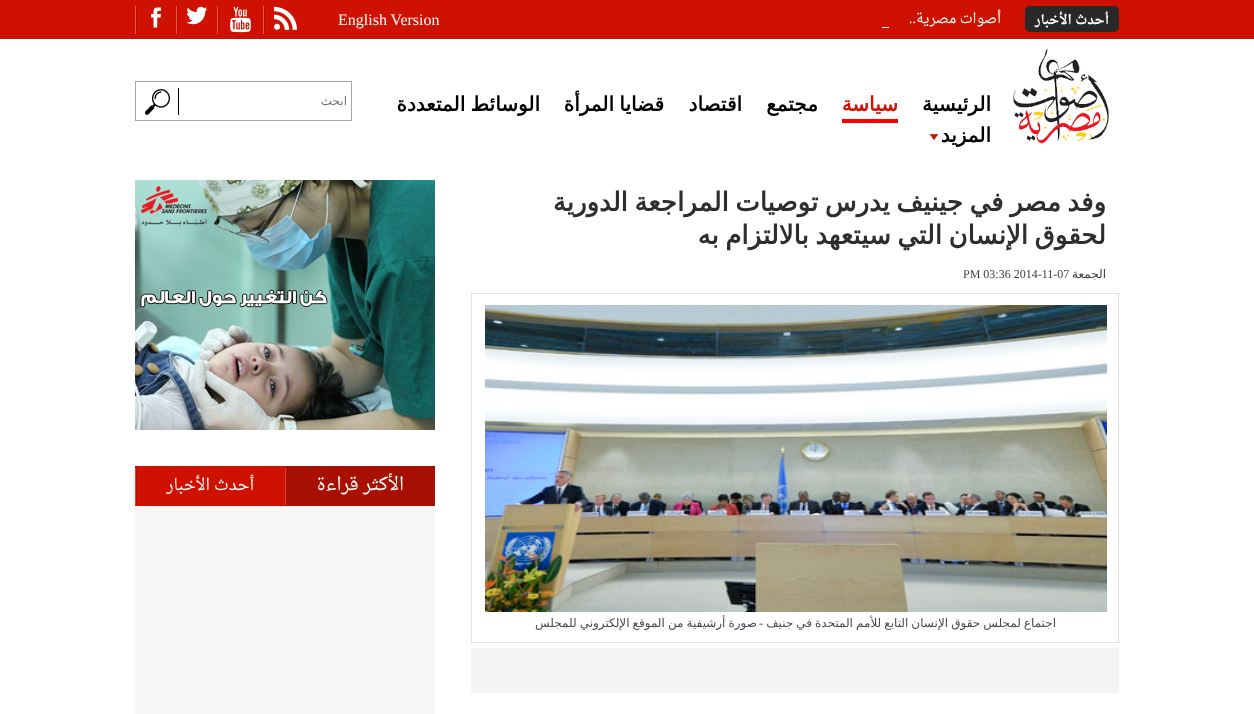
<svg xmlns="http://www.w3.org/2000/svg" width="1254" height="714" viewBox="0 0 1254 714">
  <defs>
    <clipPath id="clip1"><rect x="484" y="186" width="622" height="66"/></clipPath>
  </defs>
  <rect width="100%" height="100%" fill="#ffffff"/>
  <rect x="0" y="0" width="1254" height="39" fill="#ce1100"/>
  <rect x="1025" y="6" width="94" height="26" rx="5" fill="#282828"/>
  <text x="1109" y="24" font-family="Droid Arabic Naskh" font-size="13" font-weight="bold" direction="rtl" fill="#ffffff">أحدث الأخبار</text>
  <text x="1001" y="23" font-family="Droid Arabic Naskh" font-size="14" direction="rtl" fill="#ffffff">أصوات مصرية</text>
  <text x="916" y="23" font-family="Liberation Serif" font-size="14" direction="rtl" fill="#ffffff">..</text>
  <rect x="882" y="27" width="7" height="1" fill="#ffffff"/>
  <text x="338" y="25" font-family="Liberation Serif" font-size="16" fill="#ffffff">English Version</text>
  <rect x="264" y="6" width="1" height="28" fill="#ad1002"/>
  <rect x="263" y="6" width="1" height="28" fill="#fa5041"/>
  <image x="274" y="6" width="23" height="24" href="img1.png"/>
  <rect x="218" y="6" width="1" height="28" fill="#ad1002"/>
  <rect x="217" y="6" width="1" height="28" fill="#fa5041"/>
  <image x="230" y="7" width="21" height="26" href="img2.png"/>
  <rect x="177" y="6" width="1" height="28" fill="#ad1002"/>
  <rect x="176" y="6" width="1" height="28" fill="#fa5041"/>
  <image x="187" y="6" width="20" height="19" href="img3.png"/>
  <rect x="136" y="6" width="1" height="28" fill="#ad1002"/>
  <rect x="135" y="6" width="1" height="28" fill="#fa5041"/>
  <image x="151" y="7" width="10" height="21" href="img4.png"/>
  <image x="1013" y="49" width="96" height="95" href="img5.png"/>
  <text x="991" y="111" font-family="DejaVu Sans" font-size="20" font-weight="bold" direction="rtl" fill="#000000">الرئيسية</text>
  <text x="898" y="111" font-family="DejaVu Sans" font-size="20" font-weight="bold" direction="rtl" fill="#ce1100">سياسة</text>
  <rect x="842" y="119" width="56" height="4" fill="#ff0000"/>
  <text x="818" y="111" font-family="DejaVu Sans" font-size="20" font-weight="bold" direction="rtl" fill="#000000">مجتمع</text>
  <text x="742" y="111" font-family="DejaVu Sans" font-size="20" font-weight="bold" direction="rtl" fill="#000000">اقتصاد</text>
  <text x="664" y="111" word-spacing="-1" font-family="DejaVu Sans" font-size="20" font-weight="bold" direction="rtl" fill="#000000">قضايا المرأة</text>
  <text x="540" y="111" word-spacing="-1" font-family="DejaVu Sans" font-size="20" font-weight="bold" direction="rtl" fill="#000000">الوسائط المتعددة</text>
  <image x="930" y="134" width="8" height="6" href="img6.png"/>
  <text x="991" y="142" font-family="DejaVu Sans" font-size="20" font-weight="bold" direction="rtl" fill="#000000">المزيد</text>
  <rect x="135.5" y="81.5" width="216" height="39" fill="none" stroke="#a6a5a5"/>
  <text x="347" y="105" font-family="DejaVu Sans" font-size="12" direction="rtl" fill="#757575">ابحث</text>
  <image x="145" y="89" width="25" height="26" href="img7.png"/>
  <rect x="178" y="88" width="1" height="27" fill="#000000"/>
  <g clip-path="url(#clip1)">
    <text x="1106" y="211" word-spacing="-1.75" font-family="DejaVu Sans" font-size="26" font-weight="bold" direction="rtl" fill="#2e2e2e">وفد مصر في جينيف يدرس توصيات المراجعة الدورية</text>
    <text x="1106" y="244" word-spacing="-1.75" font-family="DejaVu Sans" font-size="26" font-weight="bold" direction="rtl" fill="#2e2e2e">لحقوق الإنسان التي سيتعهد بالالتزام به</text>
  </g>
  <text x="1106" y="278" font-family="DejaVu Sans" font-size="12" direction="rtl" fill="#3d3d3d">الجمعة</text>
  <text x="963" y="278" font-family="Liberation Serif" font-size="12" fill="#3d3d3d">PM 03:36 2014-11-07</text>
  <rect x="471.5" y="293.5" width="647" height="349" fill="none" stroke="#dfdfdf"/>
  <image x="485" y="305" width="622" height="307" href="img8.png"/>
  <text x="1056" y="627" word-spacing="-0.75" font-family="DejaVu Sans" font-size="12" direction="rtl" fill="#494951">اجتماع لمجلس حقوق الإنسان التابع للأمم المتحدة في جنيف</text>
  <text x="757" y="627" word-spacing="-0.75" font-family="DejaVu Sans" font-size="12" direction="rtl" fill="#494951">صورة أرشيفية من الموقع الإلكتروني للمجلس</text>
  <text x="763" y="627" font-family="Liberation Serif" font-size="12" direction="rtl" fill="#494951">-</text>
  <rect x="471" y="648" width="648" height="45" fill="#f5f4f2"/>
  <image x="135" y="180" width="300" height="250" href="img9.png"/>
  <rect x="285" y="466" width="150" height="40" fill="#a81003"/>
  <rect x="285" y="468" width="1" height="37" fill="#e33e2f"/>
  <text x="404" y="490" font-family="Droid Arabic Naskh" font-size="18" direction="rtl" fill="#ffffff">الأكثر قراءة</text>
  <rect x="135" y="466" width="150" height="40" fill="#ce1100"/>
  <image x="135" y="468" width="2" height="37" href="img10.png"/>
  <text x="254" y="490" font-family="Droid Arabic Naskh" font-size="16" direction="rtl" fill="#ffffff">أحدث الأخبار</text>
  <rect x="135" y="506" width="300" height="208" fill="#f9f7f5"/>
</svg>
